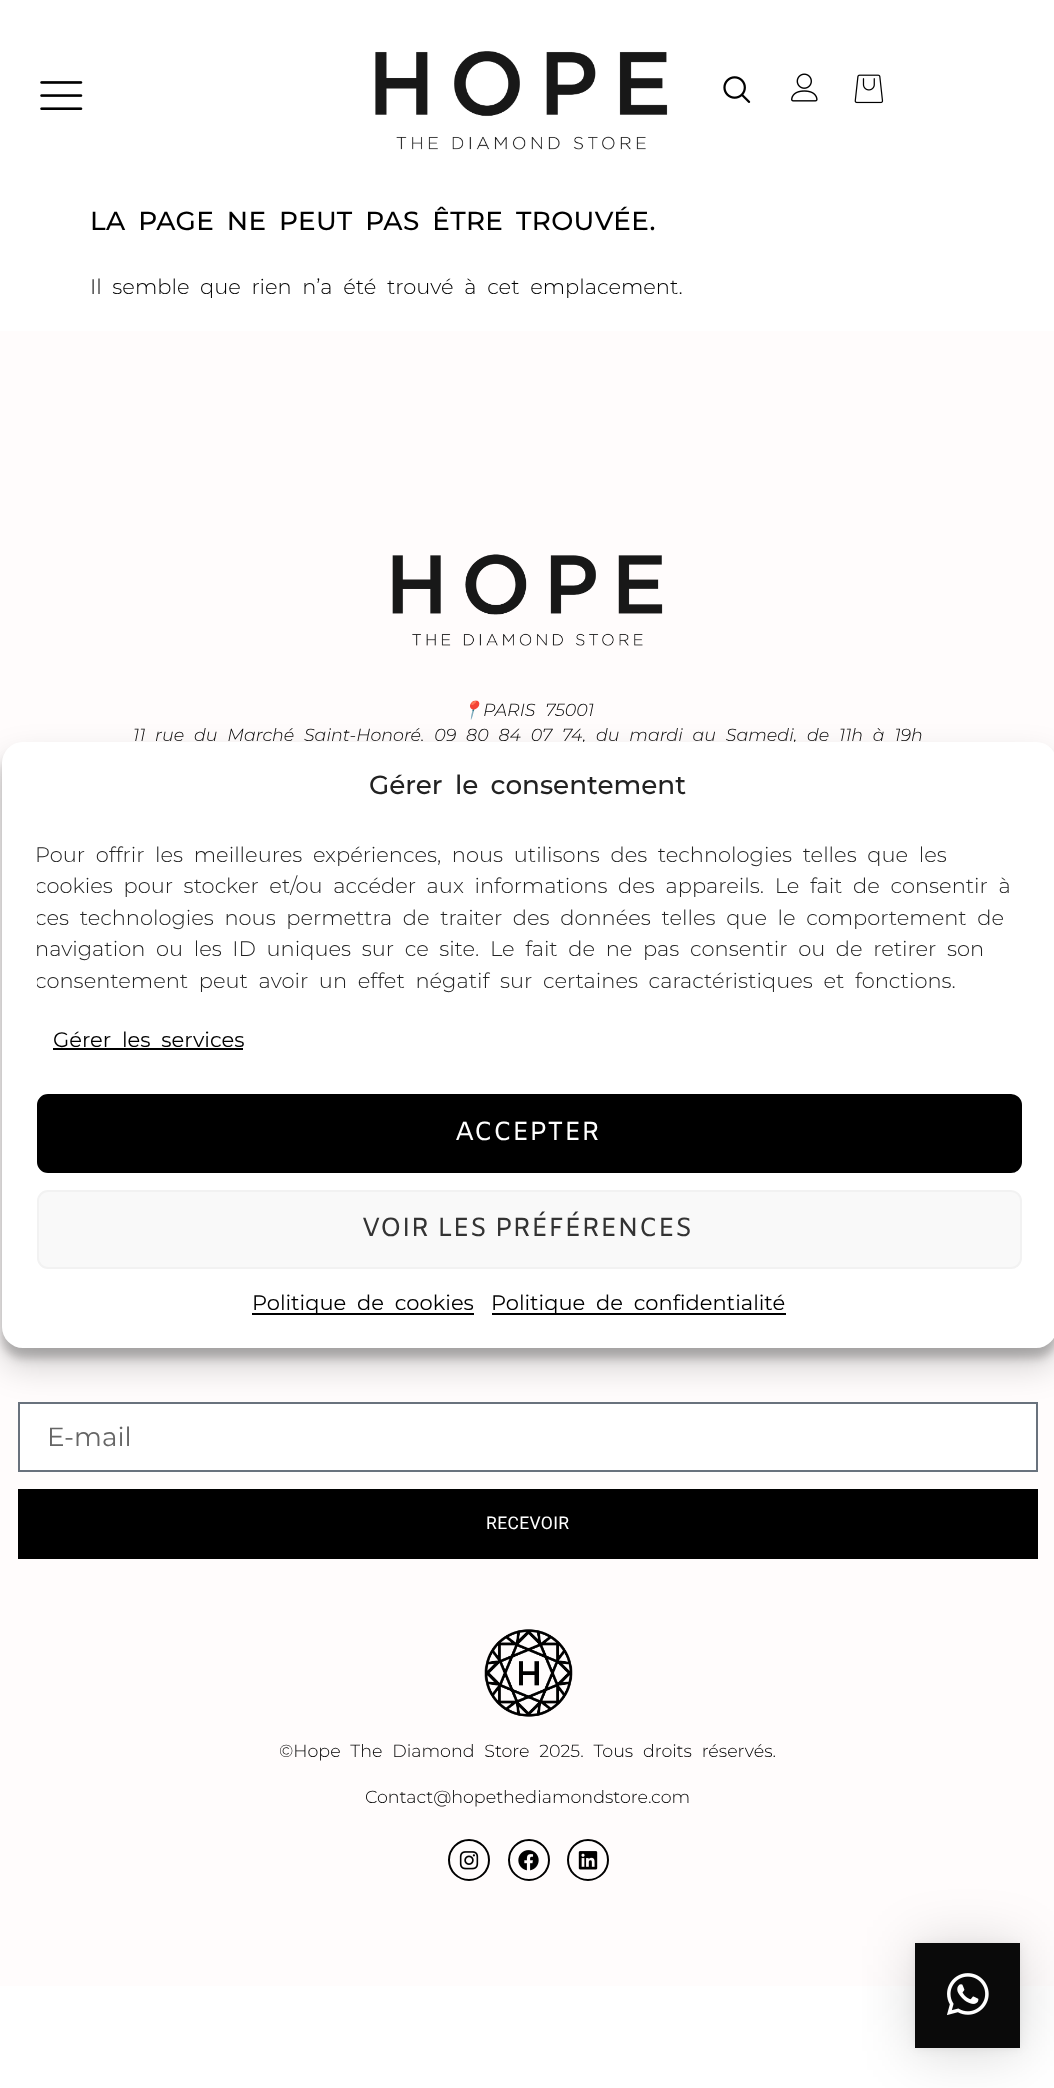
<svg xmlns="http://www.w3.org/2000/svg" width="1054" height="2088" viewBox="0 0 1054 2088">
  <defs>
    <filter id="blur1" x="-50%" y="-200%" width="200%" height="500%"><feGaussianBlur stdDeviation="5"/></filter>
    <filter id="blur2" x="-50%" y="-200%" width="200%" height="500%"><feGaussianBlur stdDeviation="17.5"/></filter>
    <clipPath id="clip1"><rect x="37" y="838" width="985" height="167"/></clipPath>
    <filter id="blur3" x="-50%" y="-200%" width="200%" height="500%"><feGaussianBlur stdDeviation="28"/></filter>
  </defs>
  <rect width="100%" height="100%" fill="#ffffff"/>
  <image x="40" y="81" width="43" height="29" href="img1.png"/>
  <image x="375" y="51" width="293" height="99" href="img2.png"/>
  <image x="723" y="76" width="28" height="27" href="img3.png"/>
  <image x="791" y="73" width="27" height="29" href="img4.png"/>
  <image x="854" y="74" width="30" height="30" href="img5.png"/>
  <text x="90" y="230" word-spacing="5.25" font-family="Montserrat" font-size="26.25" font-weight="500" letter-spacing="0.35" fill="#000000">LA PAGE NE PEUT PAS ÊTRE TROUVÉE.</text>
  <text x="90" y="294" word-spacing="5.25" font-family="Montserrat" font-size="21" font-weight="300" fill="#000000">Il semble que rien n’a été trouvé à cet emplacement.</text>
  <rect x="0" y="331" width="1054" height="1655" fill="#fffcfc"/>
  <image x="392" y="554" width="271" height="92" href="img6.png"/>
  <text x="461" y="716" font-family="Noto Color Emoji" font-size="17.5" font-style="italic" fill="#000000">📍</text>
  <text x="483" y="716" word-spacing="5.25" font-family="Montserrat" font-size="17.5" font-weight="300" font-style="italic" fill="#000000">PARIS 75001</text>
  <text x="133" y="741" word-spacing="5.25" font-family="Montserrat" font-size="17.5" font-weight="300" font-style="italic" fill="#000000">11 rue du Marché Saint-Honoré. 09 80 84 07 74, du mardi au Samedi, de 11h à 19h</text>
  <rect x="19" y="1403" width="1018" height="68" fill="#ffffff" stroke="#69727d" stroke-width="2"/>
  <text x="47" y="1446" font-family="Montserrat" font-size="26.25" fill="#666666">E-mail</text>
  <rect x="18" y="1489" width="1020" height="70" fill="#000000"/>
  <text x="486" y="1529" font-family="Roboto" font-size="17.5" letter-spacing="0.35" fill="#ffffff">RECEVOIR</text>
  <image x="484" y="1629" width="89" height="88" href="img7.png"/>
  <text x="279" y="1757" word-spacing="5.25" font-family="Montserrat" font-size="17.5" font-weight="300" fill="#000000">©Hope The Diamond Store 2025. Tous droits réservés.</text>
  <text x="365" y="1803" font-family="Montserrat" font-size="17.5" font-weight="300" fill="#000000">Contact@hopethediamondstore.com</text>
  <circle cx="469" cy="1860" r="20" fill="none" stroke="#000000" stroke-width="2"/>
  <image x="459" y="1851" width="20" height="19" href="img8.png"/>
  <circle cx="529" cy="1860" r="20" fill="none" stroke="#000000" stroke-width="2"/>
  <image x="518" y="1850" width="21" height="21" href="img9.png"/>
  <circle cx="588" cy="1860" r="20" fill="none" stroke="#000000" stroke-width="2"/>
  <image x="578" y="1851" width="20" height="19" href="img10.png"/>
  <rect x="2" y="753" width="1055" height="605" rx="21" fill="#000000" fill-opacity="0.23" filter="url(#blur1)"/>
  <rect x="2" y="760" width="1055" height="605" rx="21" fill="#000000" fill-opacity="0.19" filter="url(#blur2)"/>
  <rect x="2" y="742" width="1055" height="606" rx="21" fill="#ffffff"/>
  <text x="369" y="794" word-spacing="5.25" font-family="Montserrat" font-size="26.25" font-weight="500" fill="#222222">Gérer le consentement</text>
  <text x="35" y="862" word-spacing="5.25" font-family="Montserrat" font-size="21" font-weight="300" fill="#222222">Pour offrir les meilleures expériences, nous utilisons des technologies telles que les</text>
  <g clip-path="url(#clip1)">
    <text x="35" y="893" word-spacing="5.25" font-family="Montserrat" font-size="21" font-weight="300" fill="#222222">cookies pour stocker et/ou accéder aux informations des appareils. Le fait de consentir à</text>
    <text x="35" y="925" word-spacing="5.25" font-family="Montserrat" font-size="21" font-weight="300" fill="#222222">ces technologies nous permettra de traiter des données telles que le comportement de</text>
  </g>
  <text x="35" y="956" word-spacing="5.25" font-family="Montserrat" font-size="21" font-weight="300" fill="#222222">navigation ou les ID uniques sur ce site. Le fait de ne pas consentir ou de retirer son</text>
  <g clip-path="url(#clip1)">
    <text x="35" y="988" word-spacing="5.25" font-family="Montserrat" font-size="21" font-weight="300" fill="#222222">consentement peut avoir un effet négatif sur certaines caractéristiques et fonctions.</text>
  </g>
  <text x="53" y="1047" word-spacing="5.25" font-family="Montserrat" font-size="21" fill="#000000">Gérer les services</text>
  <rect x="53" y="1048" width="190" height="2" fill="#000000"/>
  <rect x="38" y="1095" width="983" height="77" rx="10" fill="#000000" stroke="#000000" stroke-width="2"/>
  <text x="455" y="1140" font-family="Amiko" font-size="26.25" letter-spacing="0.35" fill="#ffffff">ACCEPTER</text>
  <rect x="38" y="1191" width="983" height="77" rx="10" fill="#f9f9f9" stroke="#f2f2f2" stroke-width="2"/>
  <text x="362" y="1236" font-family="Amiko" font-size="26.25" letter-spacing="0.35" fill="#333333">VOIR LES PRÉFÉRENCES</text>
  <rect x="252" y="1313" width="222" height="2" fill="#000000"/>
  <text x="252" y="1310" word-spacing="5.25" font-family="Montserrat" font-size="21" fill="#000000">Politique de cookies</text>
  <rect x="492" y="1313" width="294" height="2" fill="#000000"/>
  <text x="491" y="1310" word-spacing="5.25" font-family="Montserrat" font-size="21" fill="#000000">Politique de confidentialité</text>
  <rect x="915" y="1946" width="105" height="105" fill="#000000" fill-opacity="0.16" filter="url(#blur3)"/>
  <rect x="915" y="1944" width="105" height="105" fill="#000000" fill-opacity="0.06" filter="url(#blur1)"/>
  <rect x="915" y="1943" width="105" height="105" fill="#0a0a0a"/>
  <image x="947" y="1973" width="42" height="42" href="img11.png"/>
</svg>
